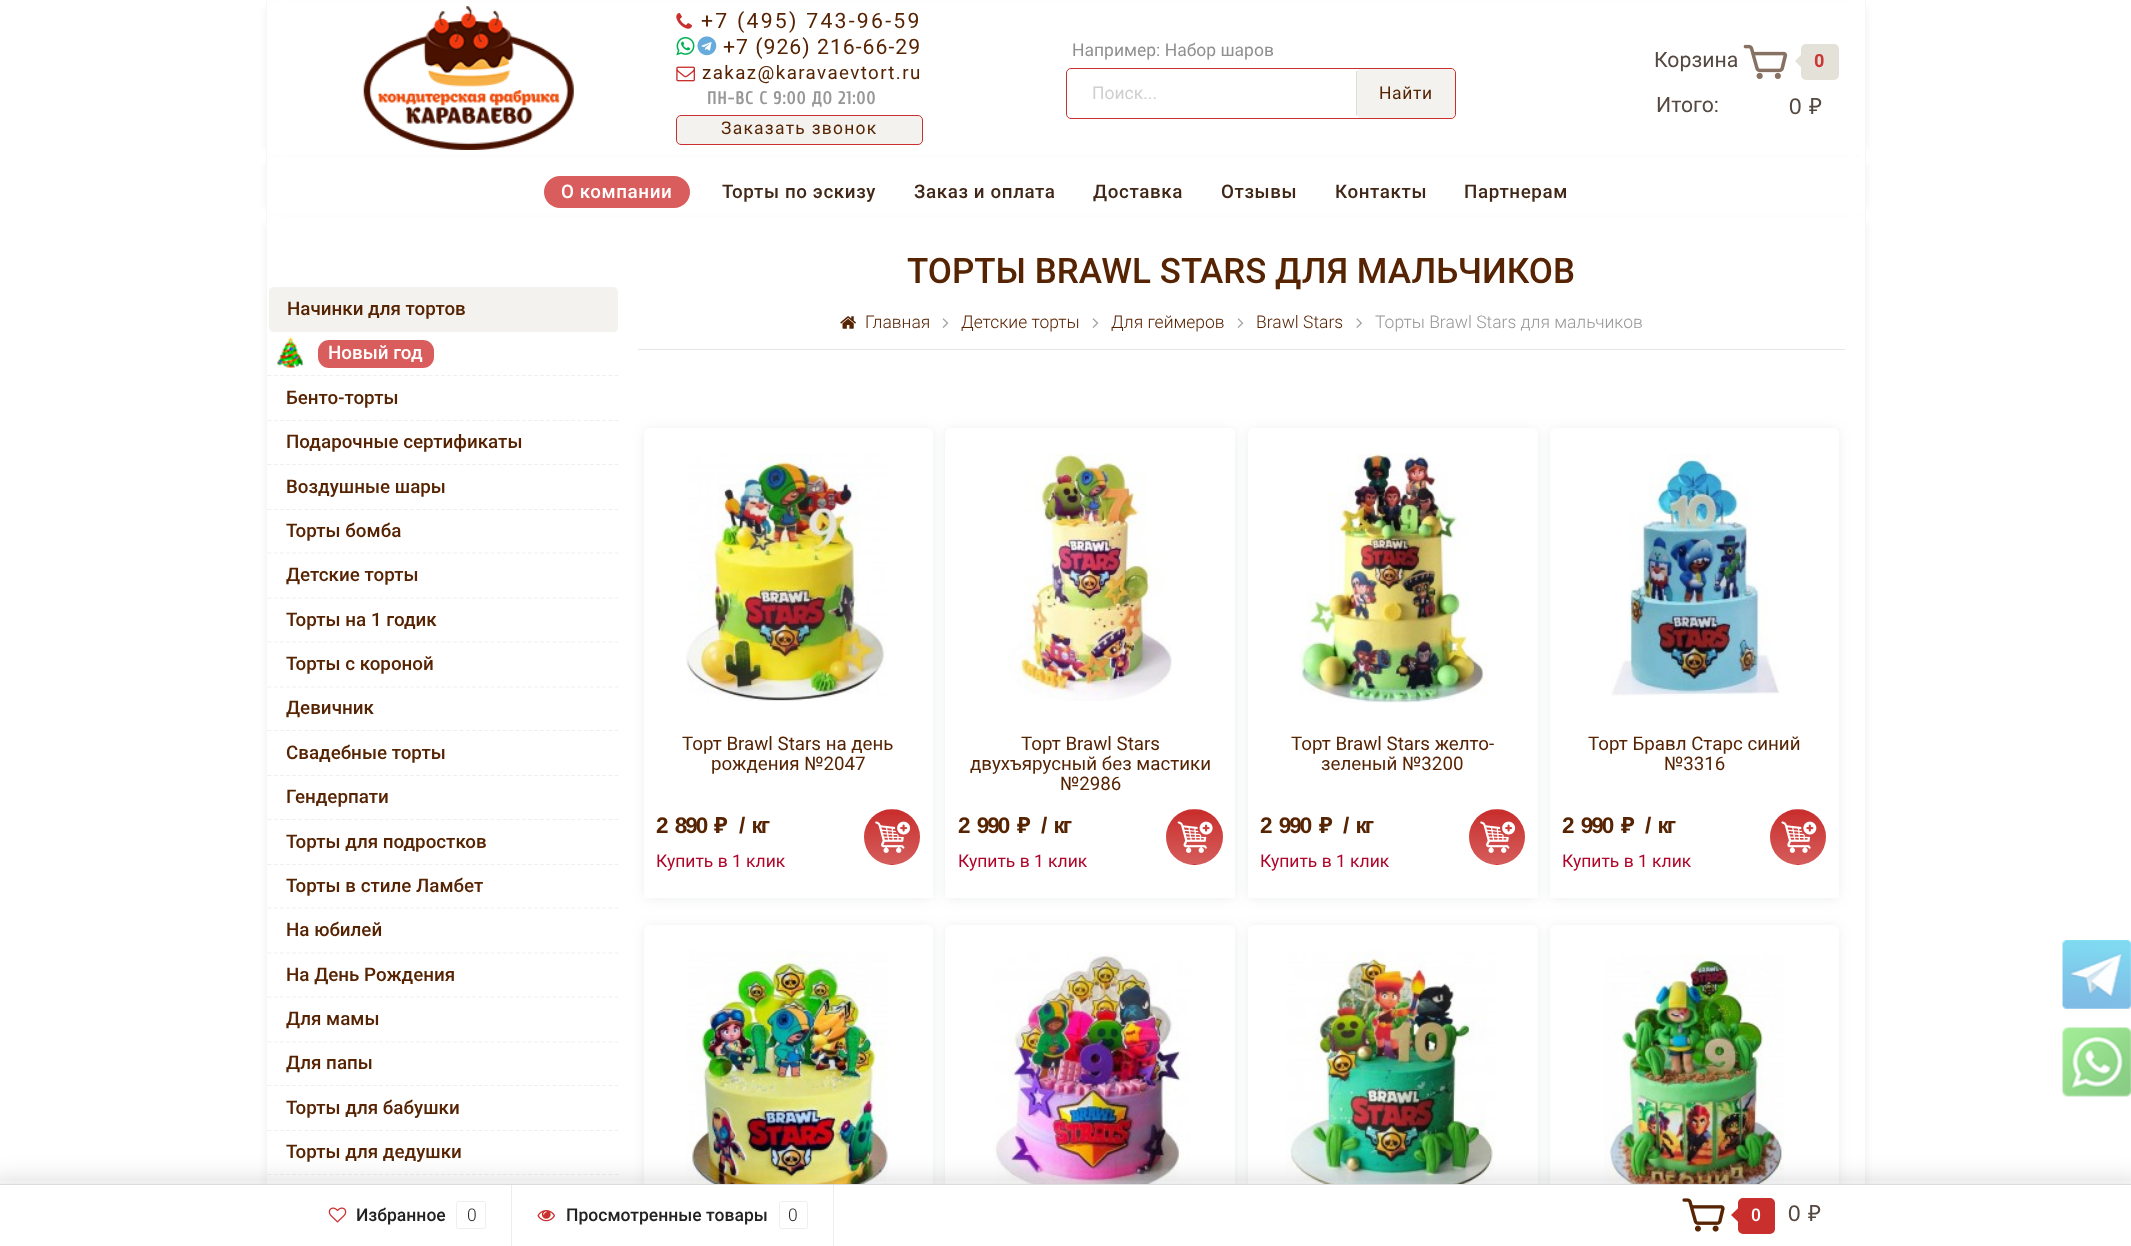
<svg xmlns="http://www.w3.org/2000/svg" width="2131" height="1246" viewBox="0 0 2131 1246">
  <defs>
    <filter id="blur1" x="-50%" y="-200%" width="200%" height="500%"><feGaussianBlur stdDeviation="4"/></filter>
    <filter id="blur2" x="-50%" y="-200%" width="200%" height="500%"><feGaussianBlur stdDeviation="6"/></filter>
    <clipPath id="clip1"><rect x="864" y="809" width="56" height="56" rx="28"/></clipPath>
    <linearGradient id="g1" gradientUnits="userSpaceOnUse" x1="892" y1="756" x2="892" y2="810"><stop offset="0" stop-color="#ffffff" stop-opacity="0"/><stop offset="1" stop-color="#ffffff" stop-opacity="0.22"/></linearGradient>
    <linearGradient id="g2" gradientUnits="userSpaceOnUse" x1="892" y1="810" x2="892" y2="864"><stop offset="0" stop-color="#ffffff" stop-opacity="0"/><stop offset="1" stop-color="#ffffff" stop-opacity="0.22"/></linearGradient>
    <clipPath id="clip2"><rect x="1166" y="809" width="57" height="56" rx="28"/></clipPath>
    <linearGradient id="g3" gradientUnits="userSpaceOnUse" x1="1194" y1="756" x2="1194" y2="810"><stop offset="0" stop-color="#ffffff" stop-opacity="0"/><stop offset="1" stop-color="#ffffff" stop-opacity="0.22"/></linearGradient>
    <linearGradient id="g4" gradientUnits="userSpaceOnUse" x1="1194" y1="810" x2="1194" y2="864"><stop offset="0" stop-color="#ffffff" stop-opacity="0"/><stop offset="1" stop-color="#ffffff" stop-opacity="0.22"/></linearGradient>
    <clipPath id="clip3"><rect x="1469" y="809" width="56" height="56" rx="28"/></clipPath>
    <linearGradient id="g5" gradientUnits="userSpaceOnUse" x1="1497" y1="756" x2="1497" y2="810"><stop offset="0" stop-color="#ffffff" stop-opacity="0"/><stop offset="1" stop-color="#ffffff" stop-opacity="0.22"/></linearGradient>
    <linearGradient id="g6" gradientUnits="userSpaceOnUse" x1="1497" y1="810" x2="1497" y2="864"><stop offset="0" stop-color="#ffffff" stop-opacity="0"/><stop offset="1" stop-color="#ffffff" stop-opacity="0.22"/></linearGradient>
    <clipPath id="clip4"><rect x="1770" y="809" width="56" height="56" rx="28"/></clipPath>
    <linearGradient id="g7" gradientUnits="userSpaceOnUse" x1="1798" y1="756" x2="1798" y2="810"><stop offset="0" stop-color="#ffffff" stop-opacity="0"/><stop offset="1" stop-color="#ffffff" stop-opacity="0.22"/></linearGradient>
    <linearGradient id="g8" gradientUnits="userSpaceOnUse" x1="1798" y1="810" x2="1798" y2="864"><stop offset="0" stop-color="#ffffff" stop-opacity="0"/><stop offset="1" stop-color="#ffffff" stop-opacity="0.22"/></linearGradient>
    <filter id="blur3" x="-50%" y="-200%" width="200%" height="500%"><feGaussianBlur stdDeviation="12.5"/></filter>
  </defs>
  <rect width="100%" height="100%" fill="#ffffff"/>
  <rect x="281" y="8" width="1585" height="141" fill="#efefef" filter="url(#blur1)"/>
  <rect x="266" y="8" width="1585" height="141" fill="#efefef" filter="url(#blur1)"/>
  <rect x="267" y="2" width="1598" height="153" fill="#ffffff"/>
  <rect x="1865" y="0" width="1" height="156" fill="#f7f7f7"/>
  <rect x="266" y="0" width="1" height="156" fill="#f7f7f7"/>
  <image x="363" y="6" width="211" height="144" href="img1.png"/>
  <image x="676" y="13" width="16" height="16" href="img2.png"/>
  <text x="701" y="28" font-family="Roboto" font-size="21.25" letter-spacing="2.25" fill="#562303">+7 (495) 743-96-59</text>
  <image x="676" y="37" width="19" height="19" href="img3.png"/>
  <image x="697" y="36" width="20" height="20" href="img4.png"/>
  <text x="723" y="54" font-family="Roboto" font-size="21.25" letter-spacing="1" fill="#562303">+7 (926) 216-66-29</text>
  <image x="676" y="66" width="19" height="16" href="img5.png"/>
  <text x="702" y="79" font-family="Roboto" font-size="18.75" letter-spacing="1.4" fill="#562303">zakaz@karavaevtort.ru</text>
  <text x="707" y="104" font-family="Cuprum" font-size="17.5" font-weight="bold" letter-spacing="1.1" fill="#979797">ПН-ВС С 9:00 ДО 21:00</text>
  <rect x="676.5" y="115.5" width="246" height="29" rx="4.5" fill="#f3f2ee" stroke="#c92f2d"/>
  <text x="721" y="134" font-family="Roboto" font-size="17.5" letter-spacing="1.25" fill="#562303">Заказать звонок</text>
  <text x="1072" y="56" font-family="Roboto" font-size="17.5" fill="#909090">Например: Набор шаров</text>
  <rect x="1066.5" y="68.5" width="389" height="50" rx="4.5" fill="none" stroke="#c92f2d"/>
  <text x="1092" y="99" font-family="Roboto" font-size="17.5" fill="#cfcfcf">Поиск...</text>
  <rect x="1356" y="69" width="99" height="49" rx="5" fill="#f3f2ee"/>
  <rect x="1356" y="71" width="1" height="44" fill="#dddddd"/>
  <text x="1379" y="99" font-family="Roboto" font-size="17.5" letter-spacing="0.6" fill="#562303">Найти</text>
  <text x="1654" y="67" font-family="Roboto" font-size="21.25" fill="#544840">Корзина</text>
  <image x="1743" y="44" width="45" height="35" href="img6.png"/>
  <rect x="1803.5" y="46.5" width="33" height="31" rx="2.5" fill="#e3e1d8" stroke="#e3e1d8" stroke-width="5"/>
  <path d="M1806 50V72.5L1795 61Z" fill="#e3e1d8"/>
  <text x="1814" y="67" font-family="Roboto" font-size="17.5" font-weight="bold" fill="#cb3735">0</text>
  <text x="1656" y="112" font-family="Roboto" font-size="21.25" fill="#544840">Итого:</text>
  <text x="1789" y="114" font-family="Liberation Sans" font-size="22.5" letter-spacing="-2" fill="#544840">0</text>
  <text x="1809" y="114" font-family="Noto Sans" font-size="22.5" letter-spacing="-2" fill="#544840">₽</text>
  <rect x="281" y="164" width="1585" height="44" fill="#efefef" filter="url(#blur1)"/>
  <rect x="266" y="164" width="1585" height="44" fill="#efefef" filter="url(#blur1)"/>
  <rect x="267" y="158" width="1598" height="56" fill="#ffffff"/>
  <rect x="1865" y="156" width="1" height="59" fill="#f7f7f7"/>
  <rect x="266" y="156" width="1" height="59" fill="#f7f7f7"/>
  <rect x="544" y="176" width="146" height="32" rx="16" fill="#d95d5c"/>
  <text x="561" y="198" font-family="Roboto" font-size="18.75" font-weight="500" letter-spacing="0.6" fill="#ffffff">О компании</text>
  <text x="722" y="198" font-family="Roboto" font-size="18.75" font-weight="500" letter-spacing="0.6" fill="#402717">Торты по эскизу</text>
  <text x="914" y="198" font-family="Roboto" font-size="18.75" font-weight="500" letter-spacing="0.6" fill="#402717">Заказ и оплата</text>
  <text x="1093" y="198" font-family="Roboto" font-size="18.75" font-weight="500" letter-spacing="0.6" fill="#402717">Доставка</text>
  <text x="1221" y="198" font-family="Roboto" font-size="18.75" font-weight="500" letter-spacing="0.6" fill="#402717">Отзывы</text>
  <text x="1335" y="198" font-family="Roboto" font-size="18.75" font-weight="500" letter-spacing="0.6" fill="#402717">Контакты</text>
  <text x="1464" y="198" font-family="Roboto" font-size="18.75" font-weight="500" letter-spacing="0.6" fill="#402717">Партнерам</text>
  <rect x="281" y="223" width="1585" height="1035" fill="#efefef" filter="url(#blur1)"/>
  <rect x="266" y="223" width="1585" height="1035" fill="#efefef" filter="url(#blur1)"/>
  <rect x="267" y="217" width="1598" height="967" fill="#ffffff"/>
  <rect x="1865" y="215" width="1" height="9" fill="#f7f7f7"/>
  <rect x="266" y="215" width="1" height="9" fill="#f7f7f7"/>
  <rect x="268.5" y="286.5" width="350" height="46" rx="5.5" fill="#f3f2ee" stroke="#ffffff"/>
  <text x="287" y="315" font-family="Roboto" font-size="18.75" font-weight="500" fill="#562303">Начинки для тортов</text>
  <path d="M267.5 375.5H619" fill="none" stroke="#efefef" stroke-width="1.2" stroke-dasharray="3.75 2.45"/>
  <image x="277" y="337" width="26" height="31" href="img7.png"/>
  <rect x="318" y="340" width="116" height="28" rx="11" fill="#d95d5c"/>
  <text x="328" y="359" font-family="Roboto" font-size="18.75" font-weight="500" fill="#ffffff">Новый год</text>
  <path d="M267.5 420.5H619" fill="none" stroke="#efefef" stroke-width="1.2" stroke-dasharray="3.75 2.45"/>
  <text x="286" y="404" font-family="Roboto" font-size="18.75" font-weight="500" fill="#562303">Бенто-торты</text>
  <path d="M267.5 464.5H619" fill="none" stroke="#efefef" stroke-width="1.2" stroke-dasharray="3.75 2.45"/>
  <text x="286" y="448" font-family="Roboto" font-size="18.75" font-weight="500" fill="#562303">Подарочные сертификаты</text>
  <path d="M267.5 509.5H619" fill="none" stroke="#efefef" stroke-width="1.2" stroke-dasharray="3.75 2.45"/>
  <text x="286" y="493" font-family="Roboto" font-size="18.75" font-weight="500" fill="#562303">Воздушные шары</text>
  <path d="M267.5 553H619" fill="none" stroke="#efefef" stroke-width="1.2" stroke-dasharray="3.75 2.45"/>
  <text x="286" y="537" font-family="Roboto" font-size="18.75" font-weight="500" fill="#562303">Торты бомба</text>
  <path d="M267.5 598H619" fill="none" stroke="#efefef" stroke-width="1.2" stroke-dasharray="3.75 2.45"/>
  <text x="286" y="581" font-family="Roboto" font-size="18.75" font-weight="500" fill="#562303">Детские торты</text>
  <path d="M267.5 642H619" fill="none" stroke="#efefef" stroke-width="1.2" stroke-dasharray="3.75 2.45"/>
  <text x="286" y="626" font-family="Roboto" font-size="18.75" font-weight="500" fill="#562303">Торты на 1 годик</text>
  <path d="M267.5 687H619" fill="none" stroke="#efefef" stroke-width="1.2" stroke-dasharray="3.75 2.45"/>
  <text x="286" y="670" font-family="Roboto" font-size="18.75" font-weight="500" fill="#562303">Торты с короной</text>
  <path d="M267.5 730.5H619" fill="none" stroke="#efefef" stroke-width="1.2" stroke-dasharray="3.75 2.45"/>
  <text x="286" y="714" font-family="Roboto" font-size="18.75" font-weight="500" fill="#562303">Девичник</text>
  <path d="M267.5 775.5H619" fill="none" stroke="#efefef" stroke-width="1.2" stroke-dasharray="3.75 2.45"/>
  <text x="286" y="759" font-family="Roboto" font-size="18.75" font-weight="500" fill="#562303">Свадебные торты</text>
  <path d="M267.5 819.5H619" fill="none" stroke="#efefef" stroke-width="1.2" stroke-dasharray="3.75 2.45"/>
  <text x="286" y="803" font-family="Roboto" font-size="18.75" font-weight="500" fill="#562303">Гендерпати</text>
  <path d="M267.5 864.5H619" fill="none" stroke="#efefef" stroke-width="1.2" stroke-dasharray="3.75 2.45"/>
  <text x="286" y="848" font-family="Roboto" font-size="18.75" font-weight="500" fill="#562303">Торты для подростков</text>
  <path d="M267.5 908H619" fill="none" stroke="#efefef" stroke-width="1.2" stroke-dasharray="3.75 2.45"/>
  <text x="286" y="892" font-family="Roboto" font-size="18.75" font-weight="500" fill="#562303">Торты в стиле Ламбет</text>
  <path d="M267.5 953H619" fill="none" stroke="#efefef" stroke-width="1.2" stroke-dasharray="3.75 2.45"/>
  <text x="286" y="936" font-family="Roboto" font-size="18.75" font-weight="500" fill="#562303">На юбилей</text>
  <path d="M267.5 997H619" fill="none" stroke="#efefef" stroke-width="1.2" stroke-dasharray="3.75 2.45"/>
  <text x="286" y="981" font-family="Roboto" font-size="18.75" font-weight="500" fill="#562303">На День Рождения</text>
  <path d="M267.5 1042H619" fill="none" stroke="#efefef" stroke-width="1.2" stroke-dasharray="3.75 2.45"/>
  <text x="286" y="1025" font-family="Roboto" font-size="18.75" font-weight="500" fill="#562303">Для мамы</text>
  <path d="M267.5 1085.5H619" fill="none" stroke="#efefef" stroke-width="1.2" stroke-dasharray="3.75 2.45"/>
  <text x="286" y="1069" font-family="Roboto" font-size="18.75" font-weight="500" fill="#562303">Для папы</text>
  <path d="M267.5 1130.5H619" fill="none" stroke="#efefef" stroke-width="1.2" stroke-dasharray="3.75 2.45"/>
  <text x="286" y="1114" font-family="Roboto" font-size="18.75" font-weight="500" fill="#562303">Торты для бабушки</text>
  <path d="M267.5 1174.5H619" fill="none" stroke="#efefef" stroke-width="1.2" stroke-dasharray="3.75 2.45"/>
  <text x="286" y="1158" font-family="Roboto" font-size="18.75" font-weight="500" fill="#562303">Торты для дедушки</text>
  <text x="907" y="283" font-family="Roboto" font-size="35" font-weight="500" fill="#562303">ТОРТЫ BRAWL STARS ДЛЯ МАЛЬЧИКОВ</text>
  <rect x="638" y="349" width="1207" height="1" fill="#e7e7e7"/>
  <image x="840" y="316" width="16" height="13" href="img8.png"/>
  <text x="865" y="328" font-family="Roboto" font-size="17.5" font-weight="300" fill="#562303">Главная</text>
  <image x="942" y="318" width="7" height="10" href="img9.png"/>
  <text x="961" y="328" font-family="Roboto" font-size="17.5" font-weight="300" fill="#562303">Детские торты</text>
  <image x="1092" y="318" width="7" height="10" href="img9.png"/>
  <text x="1111" y="328" font-family="Roboto" font-size="17.5" font-weight="300" fill="#562303">Для геймеров</text>
  <image x="1237" y="318" width="7" height="10" href="img9.png"/>
  <text x="1256" y="328" font-family="Roboto" font-size="17.5" font-weight="300" fill="#562303">Brawl Stars</text>
  <image x="1356" y="318" width="6" height="10" href="img10.png"/>
  <text x="1375" y="328" font-family="Roboto" font-size="17.5" font-weight="300" fill="#979797">Торты Brawl Stars для мальчиков</text>
  <rect x="644" y="429" width="289" height="470" rx="6" fill="#a5acb6" fill-opacity="0.2" filter="url(#blur2)"/>
  <rect x="644" y="428" width="289" height="470" rx="6" fill="#ffffff"/>
  <image x="686" y="454" width="200" height="247" href="img11.png"/>
  <text x="682" y="750" font-family="Roboto" font-size="18.75" fill="#562303">Торт Brawl Stars на день</text>
  <text x="711" y="770" font-family="Roboto" font-size="18.75" fill="#562303">рождения №2047</text>
  <text x="656" y="833" word-spacing="4" font-family="Liberation Sans" font-size="22.5" font-weight="bold" letter-spacing="-2" fill="#562303">2 890</text>
  <text x="714" y="833" font-family="Noto Sans" font-size="22.5" font-weight="bold" letter-spacing="-2" fill="#562303">₽</text>
  <text x="739" y="833" word-spacing="4" font-family="Liberation Sans" font-size="22.5" font-weight="bold" letter-spacing="-2" fill="#562303">/ кг</text>
  <circle cx="892" cy="837" r="28" fill="#c92f2d"/>
  <g clip-path="url(#clip1)">
    <rect x="885" y="809" width="14" height="1" fill="url(#g1)"/>
    <rect x="864" y="815" width="56" height="49" fill="url(#g2)"/>
  </g>
  <image x="875" y="821" width="36" height="32" href="img12.png"/>
  <rect x="644" y="894" width="289" height="4" fill="#ffffff"/>
  <text x="656" y="867" font-family="Roboto" font-size="17.5" fill="#af052a">Купить в 1 клик</text>
  <rect x="945" y="429" width="290" height="470" rx="6" fill="#a5acb6" fill-opacity="0.2" filter="url(#blur2)"/>
  <rect x="945" y="428" width="290" height="470" rx="6" fill="#ffffff"/>
  <image x="1007" y="453" width="165" height="248" href="img13.png"/>
  <text x="1021" y="750" font-family="Roboto" font-size="18.75" fill="#562303">Торт Brawl Stars</text>
  <text x="970" y="770" font-family="Roboto" font-size="18.75" fill="#562303">двухъярусный без мастики</text>
  <text x="1060" y="790" font-family="Roboto" font-size="18.75" fill="#562303">№2986</text>
  <text x="958" y="833" word-spacing="4" font-family="Liberation Sans" font-size="22.5" font-weight="bold" letter-spacing="-2" fill="#562303">2 990</text>
  <text x="1017" y="833" font-family="Noto Sans" font-size="22.5" font-weight="bold" letter-spacing="-2" fill="#562303">₽</text>
  <text x="1041" y="833" word-spacing="4" font-family="Liberation Sans" font-size="22.5" font-weight="bold" letter-spacing="-2" fill="#562303">/ кг</text>
  <rect x="1166" y="809" width="57" height="56" rx="28" fill="#c92f2d"/>
  <g clip-path="url(#clip2)">
    <rect x="1187" y="809" width="15" height="1" fill="url(#g3)"/>
    <rect x="1166" y="815" width="57" height="49" fill="url(#g4)"/>
  </g>
  <image x="1177" y="821" width="36" height="32" href="img14.png"/>
  <rect x="945" y="894" width="290" height="4" fill="#ffffff"/>
  <text x="958" y="867" font-family="Roboto" font-size="17.5" fill="#af052a">Купить в 1 клик</text>
  <rect x="1248" y="429" width="290" height="470" rx="6" fill="#a5acb6" fill-opacity="0.2" filter="url(#blur2)"/>
  <rect x="1248" y="428" width="290" height="470" rx="6" fill="#ffffff"/>
  <image x="1299" y="453" width="189" height="250" href="img15.png"/>
  <text x="1291" y="750" font-family="Roboto" font-size="18.75" fill="#562303">Торт Brawl Stars желто-</text>
  <text x="1321" y="770" font-family="Roboto" font-size="18.75" fill="#562303">зеленый №3200</text>
  <text x="1260" y="833" word-spacing="4" font-family="Liberation Sans" font-size="22.5" font-weight="bold" letter-spacing="-2" fill="#562303">2 990</text>
  <text x="1319" y="833" font-family="Noto Sans" font-size="22.5" font-weight="bold" letter-spacing="-2" fill="#562303">₽</text>
  <text x="1343" y="833" word-spacing="4" font-family="Liberation Sans" font-size="22.5" font-weight="bold" letter-spacing="-2" fill="#562303">/ кг</text>
  <circle cx="1497" cy="837" r="28" fill="#c92f2d"/>
  <g clip-path="url(#clip3)">
    <rect x="1490" y="809" width="14" height="1" fill="url(#g5)"/>
    <rect x="1469" y="815" width="56" height="49" fill="url(#g6)"/>
  </g>
  <image x="1480" y="821" width="36" height="32" href="img12.png"/>
  <rect x="1248" y="894" width="290" height="4" fill="#ffffff"/>
  <text x="1260" y="867" font-family="Roboto" font-size="17.5" fill="#af052a">Купить в 1 клик</text>
  <rect x="1550" y="429" width="289" height="470" rx="6" fill="#a5acb6" fill-opacity="0.2" filter="url(#blur2)"/>
  <rect x="1550" y="428" width="289" height="470" rx="6" fill="#ffffff"/>
  <image x="1611" y="454" width="169" height="242" href="img16.png"/>
  <text x="1588" y="750" font-family="Roboto" font-size="18.75" fill="#562303">Торт Бравл Старс синий</text>
  <text x="1664" y="770" font-family="Roboto" font-size="18.75" fill="#562303">№3316</text>
  <text x="1562" y="833" word-spacing="4" font-family="Liberation Sans" font-size="22.5" font-weight="bold" letter-spacing="-2" fill="#562303">2 990</text>
  <text x="1621" y="833" font-family="Noto Sans" font-size="22.5" font-weight="bold" letter-spacing="-2" fill="#562303">₽</text>
  <text x="1645" y="833" word-spacing="4" font-family="Liberation Sans" font-size="22.5" font-weight="bold" letter-spacing="-2" fill="#562303">/ кг</text>
  <circle cx="1798" cy="837" r="28" fill="#c92f2d"/>
  <g clip-path="url(#clip4)">
    <rect x="1791" y="809" width="14" height="1" fill="url(#g7)"/>
    <rect x="1770" y="815" width="56" height="49" fill="url(#g8)"/>
  </g>
  <image x="1781" y="821" width="36" height="32" href="img17.png"/>
  <rect x="1550" y="894" width="289" height="4" fill="#ffffff"/>
  <text x="1562" y="867" font-family="Roboto" font-size="17.5" fill="#af052a">Купить в 1 клик</text>
  <rect x="644" y="926" width="289" height="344" rx="6" fill="#a5acb6" fill-opacity="0.2" filter="url(#blur2)"/>
  <rect x="644" y="925" width="289" height="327" rx="6" fill="#ffffff"/>
  <image x="686" y="951" width="203" height="233" href="img18.png"/>
  <rect x="945" y="926" width="290" height="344" rx="6" fill="#a5acb6" fill-opacity="0.2" filter="url(#blur2)"/>
  <rect x="945" y="925" width="290" height="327" rx="6" fill="#ffffff"/>
  <image x="994" y="951" width="195" height="233" href="img19.png"/>
  <rect x="1248" y="926" width="290" height="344" rx="6" fill="#a5acb6" fill-opacity="0.2" filter="url(#blur2)"/>
  <rect x="1248" y="925" width="290" height="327" rx="6" fill="#ffffff"/>
  <image x="1286" y="951" width="209" height="233" href="img20.png"/>
  <rect x="1550" y="926" width="289" height="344" rx="6" fill="#a5acb6" fill-opacity="0.2" filter="url(#blur2)"/>
  <rect x="1550" y="925" width="289" height="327" rx="6" fill="#ffffff"/>
  <image x="1604" y="954" width="180" height="230" href="img21.png"/>
  <image x="2062" y="1027" width="69" height="70" href="img22.png"/>
  <image x="2062" y="940" width="69" height="69" href="img23.png"/>
  <rect x="-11" y="1181" width="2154" height="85" fill="#323232" fill-opacity="0.15" filter="url(#blur3)"/>
  <rect x="0" y="1185" width="2131" height="61" fill="#ffffff"/>
  <rect x="0" y="1184" width="2131" height="1" fill="#dbdbdb"/>
  <rect x="511" y="1185" width="1" height="61" fill="#ededed"/>
  <image x="328" y="1207" width="19" height="16" href="img24.png"/>
  <text x="356" y="1221" font-family="Roboto" font-size="17.5" font-weight="500" fill="#222222">Избранное</text>
  <rect x="456.5" y="1201.5" width="29" height="27" rx="2" fill="none" stroke="#eeeeee"/>
  <text x="467" y="1221" font-family="Roboto" font-size="17.5" font-weight="300" fill="#222222">0</text>
  <rect x="833" y="1185" width="1" height="61" fill="#ededed"/>
  <image x="537" y="1210" width="18" height="12" href="img25.png"/>
  <text x="566" y="1221" font-family="Roboto" font-size="17.5" font-weight="500" fill="#222222">Просмотренные товары</text>
  <rect x="779.5" y="1201.5" width="28" height="27" rx="2" fill="none" stroke="#eeeeee"/>
  <text x="788" y="1221" font-family="Roboto" font-size="17.5" font-weight="300" fill="#222222">0</text>
  <image x="1682" y="1198" width="43" height="34" href="img26.png"/>
  <rect x="1740.5" y="1200.5" width="32" height="31" rx="2.5" fill="#c92f2d" stroke="#c92f2d" stroke-width="5"/>
  <path d="M1742.5 1204V1226L1731 1215Z" fill="#c92f2d"/>
  <text x="1751" y="1221" font-family="Roboto" font-size="17.5" font-weight="500" fill="#ffffff">0</text>
  <text x="1788" y="1221" font-family="Liberation Sans" font-size="22.5" letter-spacing="-2" fill="#544840">0</text>
  <text x="1808" y="1221" font-family="Noto Sans" font-size="22.5" letter-spacing="-2" fill="#544840">₽</text>
</svg>
